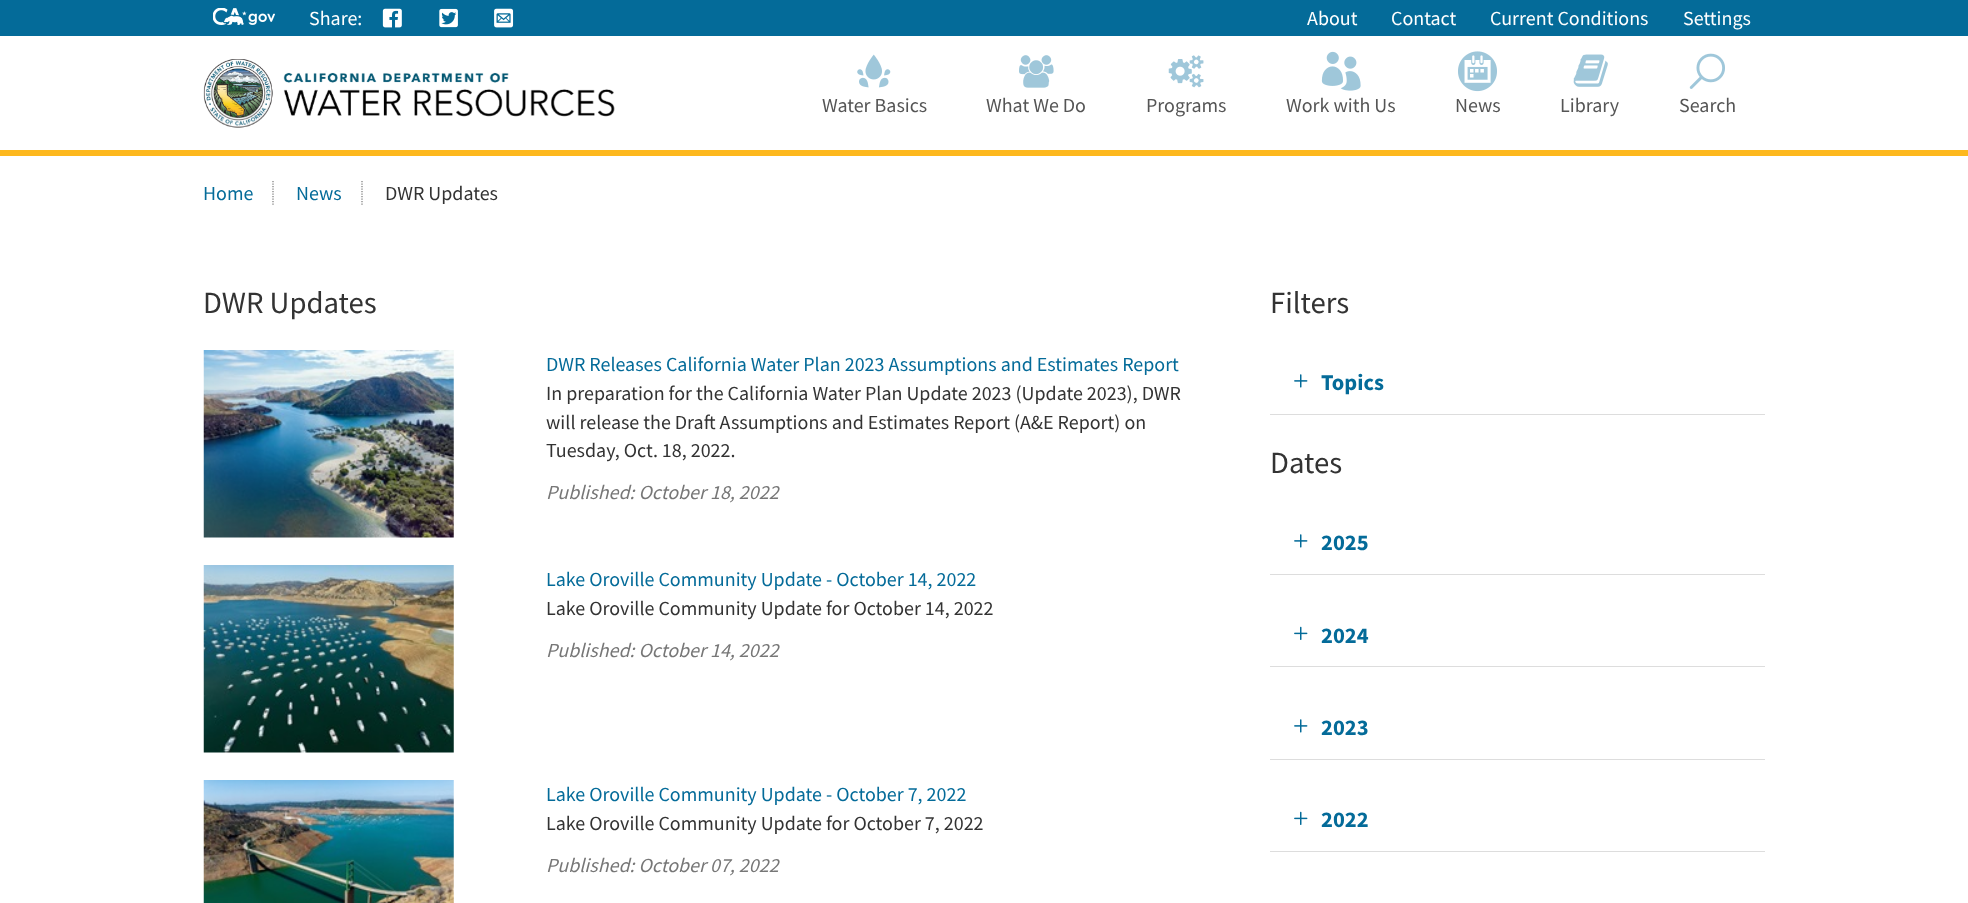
<svg xmlns="http://www.w3.org/2000/svg" width="1968" height="903" viewBox="0 0 1968 903">
  <rect width="100%" height="100%" fill="#ffffff"/>
  <rect x="0" y="0" width="1968" height="36" fill="#046b99"/>
  <image x="213" y="8" width="62" height="17" href="img1.png"/>
  <text x="309" y="25" font-family="Source Sans Pro" font-size="20" fill="#ffffff">Share:</text>
  <image x="382" y="8" width="20" height="20" href="img2.png"/>
  <image x="439" y="8" width="19" height="20" href="img3.png"/>
  <image x="494" y="8" width="20" height="20" href="img4.png"/>
  <text x="1307" y="25" font-family="Source Sans Pro" font-size="20" fill="#ffffff">About</text>
  <text x="1391" y="25" font-family="Source Sans Pro" font-size="20" fill="#ffffff">Contact</text>
  <text x="1490" y="25" font-family="Source Sans Pro" font-size="20" fill="#ffffff">Current Conditions</text>
  <text x="1683" y="25" font-family="Source Sans Pro" font-size="20" fill="#ffffff">Settings</text>
  <image x="203" y="59" width="412" height="69" href="img5.png"/>
  <rect x="0" y="150" width="1968" height="6" fill="#fdb81e"/>
  <image x="857" y="54" width="34" height="34" href="img6.png"/>
  <text x="822" y="112" font-family="Source Sans Pro" font-size="20" fill="#555555">Water Basics</text>
  <image x="1019" y="55" width="35" height="33" href="img7.png"/>
  <text x="986" y="112" font-family="Source Sans Pro" font-size="20" fill="#555555">What We Do</text>
  <image x="1168" y="55" width="36" height="33" href="img8.png"/>
  <text x="1146" y="112" font-family="Source Sans Pro" font-size="20" fill="#555555">Programs</text>
  <image x="1321" y="51" width="40" height="40" href="img9.png"/>
  <text x="1286" y="112" font-family="Source Sans Pro" font-size="20" fill="#555555">Work with Us</text>
  <image x="1458" y="51" width="39" height="41" href="img10.png"/>
  <text x="1455" y="112" font-family="Source Sans Pro" font-size="20" fill="#555555">News</text>
  <image x="1573" y="54" width="35" height="33" href="img11.png"/>
  <text x="1560" y="112" font-family="Source Sans Pro" font-size="20" fill="#555555">Library</text>
  <image x="1689" y="53" width="36" height="36" href="img12.png"/>
  <text x="1679" y="112" font-family="Source Sans Pro" font-size="20" fill="#555555">Search</text>
  <text x="203" y="200" font-family="Source Sans Pro" font-size="20" fill="#046b99">Home</text>
  <path d="M273 181V205" fill="none" stroke="#777777" stroke-width="1.2" stroke-dasharray="1.25 1.25"/>
  <text x="296" y="200" font-family="Source Sans Pro" font-size="20" fill="#046b99">News</text>
  <path d="M362 181V205" fill="none" stroke="#777777" stroke-width="1.2" stroke-dasharray="1.25 1.25"/>
  <text x="385" y="200" font-family="Source Sans Pro" font-size="20" fill="#333333">DWR Updates</text>
  <text x="203" y="313" font-family="Source Sans Pro" font-size="30.75" fill="#333333">DWR Updates</text>
  <image x="203" y="350" width="251" height="188" href="img13.png"/>
  <text x="546" y="371" font-family="Source Sans Pro" font-size="20" fill="#046b99">DWR Releases California Water Plan 2023 Assumptions and Estimates Report</text>
  <text x="546" y="400" font-family="Source Sans Pro" font-size="20" fill="#333333">In preparation for the California Water Plan Update 2023 (Update 2023), DWR</text>
  <text x="546" y="429" font-family="Source Sans Pro" font-size="20" fill="#333333">will release the Draft Assumptions and Estimates Report (A&amp;E Report) on</text>
  <text x="546" y="457" font-family="Source Sans Pro" font-size="20" fill="#333333">Tuesday, Oct. 18, 2022.</text>
  <text x="546" y="499" font-family="Source Sans Pro" font-size="20" font-style="italic" fill="#777777">Published: October 18, 2022</text>
  <image x="203" y="565" width="251" height="188" href="img14.png"/>
  <text x="546" y="586" font-family="Source Sans Pro" font-size="20" fill="#046b99">Lake Oroville Community Update - October 14, 2022</text>
  <text x="546" y="615" font-family="Source Sans Pro" font-size="20" fill="#333333">Lake Oroville Community Update for October 14, 2022</text>
  <text x="546" y="657" font-family="Source Sans Pro" font-size="20" font-style="italic" fill="#777777">Published: October 14, 2022</text>
  <image x="203" y="780" width="251" height="123" href="img15.png"/>
  <text x="546" y="801" font-family="Source Sans Pro" font-size="20" fill="#046b99">Lake Oroville Community Update - October 7, 2022</text>
  <text x="546" y="830" font-family="Source Sans Pro" font-size="20" fill="#333333">Lake Oroville Community Update for October 7, 2022</text>
  <text x="546" y="872" font-family="Source Sans Pro" font-size="20" font-style="italic" fill="#777777">Published: October 07, 2022</text>
  <text x="1270" y="313" font-family="Source Sans Pro" font-size="30.75" fill="#333333">Filters</text>
  <rect x="1270" y="414" width="495" height="1" fill="#dddddd"/>
  <image x="1294" y="374" width="14" height="14" href="img16.png"/>
  <text x="1321" y="390" font-family="Source Sans Pro" font-size="22.5" font-weight="bold" fill="#046b99">Topics</text>
  <text x="1270" y="473" font-family="Source Sans Pro" font-size="30.75" fill="#333333">Dates</text>
  <rect x="1270" y="574" width="495" height="1" fill="#dddddd"/>
  <image x="1294" y="534" width="14" height="14" href="img16.png"/>
  <text x="1321" y="550" font-family="Source Sans Pro" font-size="22.5" font-weight="bold" fill="#046b99">2025</text>
  <rect x="1270" y="666" width="495" height="1" fill="#dddddd"/>
  <image x="1294" y="626" width="14" height="14" href="img17.png"/>
  <text x="1321" y="643" font-family="Source Sans Pro" font-size="22.5" font-weight="bold" fill="#046b99">2024</text>
  <rect x="1270" y="759" width="495" height="1" fill="#dddddd"/>
  <image x="1294" y="719" width="14" height="14" href="img16.png"/>
  <text x="1321" y="735" font-family="Source Sans Pro" font-size="22.5" font-weight="bold" fill="#046b99">2023</text>
  <rect x="1270" y="851" width="495" height="1" fill="#dddddd"/>
  <image x="1294" y="811" width="14" height="14" href="img17.png"/>
  <text x="1321" y="827" font-family="Source Sans Pro" font-size="22.5" font-weight="bold" fill="#046b99">2022</text>
</svg>
